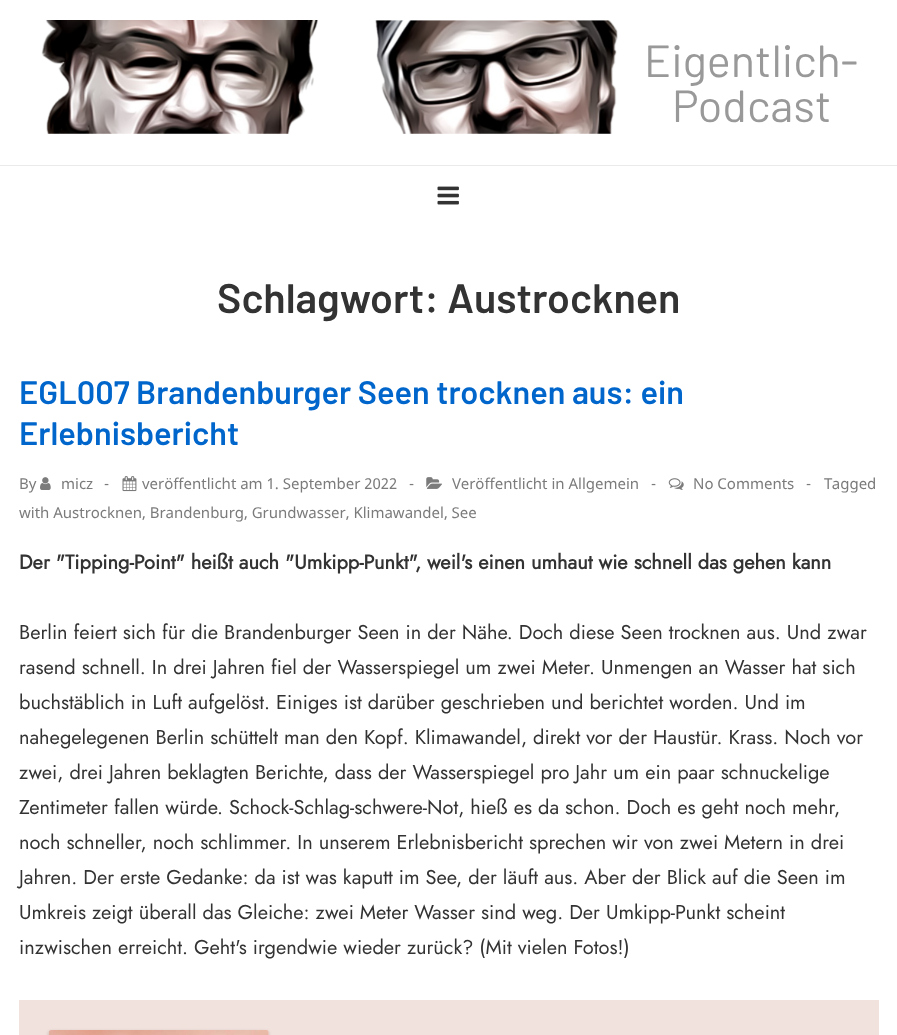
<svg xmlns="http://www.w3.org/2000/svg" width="897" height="1035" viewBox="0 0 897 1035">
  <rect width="100%" height="100%" fill="#ffffff"/>
  <image x="41" y="20" width="577" height="114" href="img1.png"/>
  <text x="644" y="77" font-family="Barlow" font-size="45" fill="#999999">Eigentlich-</text>
  <text x="672" y="122" font-family="Barlow" font-size="45" fill="#999999">Podcast</text>
  <rect x="0" y="165" width="897" height="1" fill="#eaeaea"/>
  <image x="437" y="186" width="22" height="19" href="img2.png"/>
  <text x="217" y="313" font-family="Barlow" font-size="41.25" font-weight="600" fill="#333333">Schlagwort: Austrocknen</text>
  <text x="19" y="404" font-family="Barlow" font-size="32.5" font-weight="600" fill="#0066cc">EGL007 Brandenburger Seen trocknen aus: ein</text>
  <text x="19" y="445" font-family="Barlow" font-size="32.5" font-weight="600" fill="#0066cc">Erlebnisbericht</text>
  <text x="19" y="489" font-family="Noto Sans" font-size="15" fill="#7b7b7b">By</text>
  <image x="40" y="477" width="11" height="13" href="img3.png"/>
  <text x="61" y="489" font-family="Noto Sans" font-size="15" fill="#7b7b7b">micz</text>
  <text x="104" y="489" font-family="Noto Sans" font-size="15" fill="#7b7b7b">-</text>
  <image x="122" y="476" width="15" height="16" href="img4.png"/>
  <text x="142" y="489" font-family="Noto Sans" font-size="15" fill="#7b7b7b">veröffentlicht am 1. September 2022</text>
  <text x="409" y="489" font-family="Noto Sans" font-size="15" fill="#7b7b7b">-</text>
  <image x="426" y="477" width="16" height="12" href="img5.png"/>
  <text x="452" y="489" font-family="Noto Sans" font-size="15" fill="#7b7b7b">Veröffentlicht in Allgemein</text>
  <text x="651" y="489" font-family="Noto Sans" font-size="15" fill="#7b7b7b">-</text>
  <image x="668" y="478" width="16" height="12" href="img6.png"/>
  <text x="693" y="489" font-family="Noto Sans" font-size="15" fill="#7b7b7b">No Comments</text>
  <text x="806" y="489" font-family="Noto Sans" font-size="15" fill="#7b7b7b">-</text>
  <text x="824" y="489" font-family="Noto Sans" font-size="15" fill="#7b7b7b">Tagged</text>
  <text x="19" y="518" font-family="Noto Sans" font-size="15" fill="#7b7b7b">with Austrocknen, Brandenburg, Grundwasser, Klimawandel, See</text>
  <text x="19" y="569" font-family="Jost" font-size="20" font-weight="bold" fill="#333333">Der "Tipping-Point" heißt auch "Umkipp-Punkt", weil's einen umhaut wie schnell das gehen kann</text>
  <text x="19" y="639" font-family="Jost" font-size="20" fill="#333333">Berlin feiert sich für die Brandenburger Seen in der Nähe. Doch diese Seen trocknen aus. Und zwar</text>
  <text x="19" y="674" font-family="Jost" font-size="20" fill="#333333">rasend schnell. In drei Jahren fiel der Wasserspiegel um zwei Meter. Unmengen an Wasser hat sich</text>
  <text x="19" y="709" font-family="Jost" font-size="20" fill="#333333">buchstäblich in Luft aufgelöst. Einiges ist darüber geschrieben und berichtet worden. Und im</text>
  <text x="19" y="744" font-family="Jost" font-size="20" fill="#333333">nahegelegenen Berlin schüttelt man den Kopf. Klimawandel, direkt vor der Haustür. Krass. Noch vor</text>
  <text x="19" y="779" font-family="Jost" font-size="20" fill="#333333">zwei, drei Jahren beklagten Berichte, dass der Wasserspiegel pro Jahr um ein paar schnuckelige</text>
  <text x="19" y="814" font-family="Jost" font-size="20" fill="#333333">Zentimeter fallen würde. Schock-Schlag-schwere-Not, hieß es da schon. Doch es geht noch mehr,</text>
  <text x="19" y="849" font-family="Jost" font-size="20" fill="#333333">noch schneller, noch schlimmer. In unserem Erlebnisbericht sprechen wir von zwei Metern in drei</text>
  <text x="19" y="884" font-family="Jost" font-size="20" fill="#333333">Jahren. Der erste Gedanke: da ist was kaputt im See, der läuft aus. Aber der Blick auf die Seen im</text>
  <text x="19" y="919" font-family="Jost" font-size="20" fill="#333333">Umkreis zeigt überall das Gleiche: zwei Meter Wasser sind weg. Der Umkipp-Punkt scheint</text>
  <text x="19" y="954" font-family="Jost" font-size="20" fill="#333333">inzwischen erreicht. Geht's irgendwie wieder zurück? (Mit vielen Fotos!)</text>
  <image x="19" y="1000" width="860" height="35" href="img7.png"/>
</svg>
